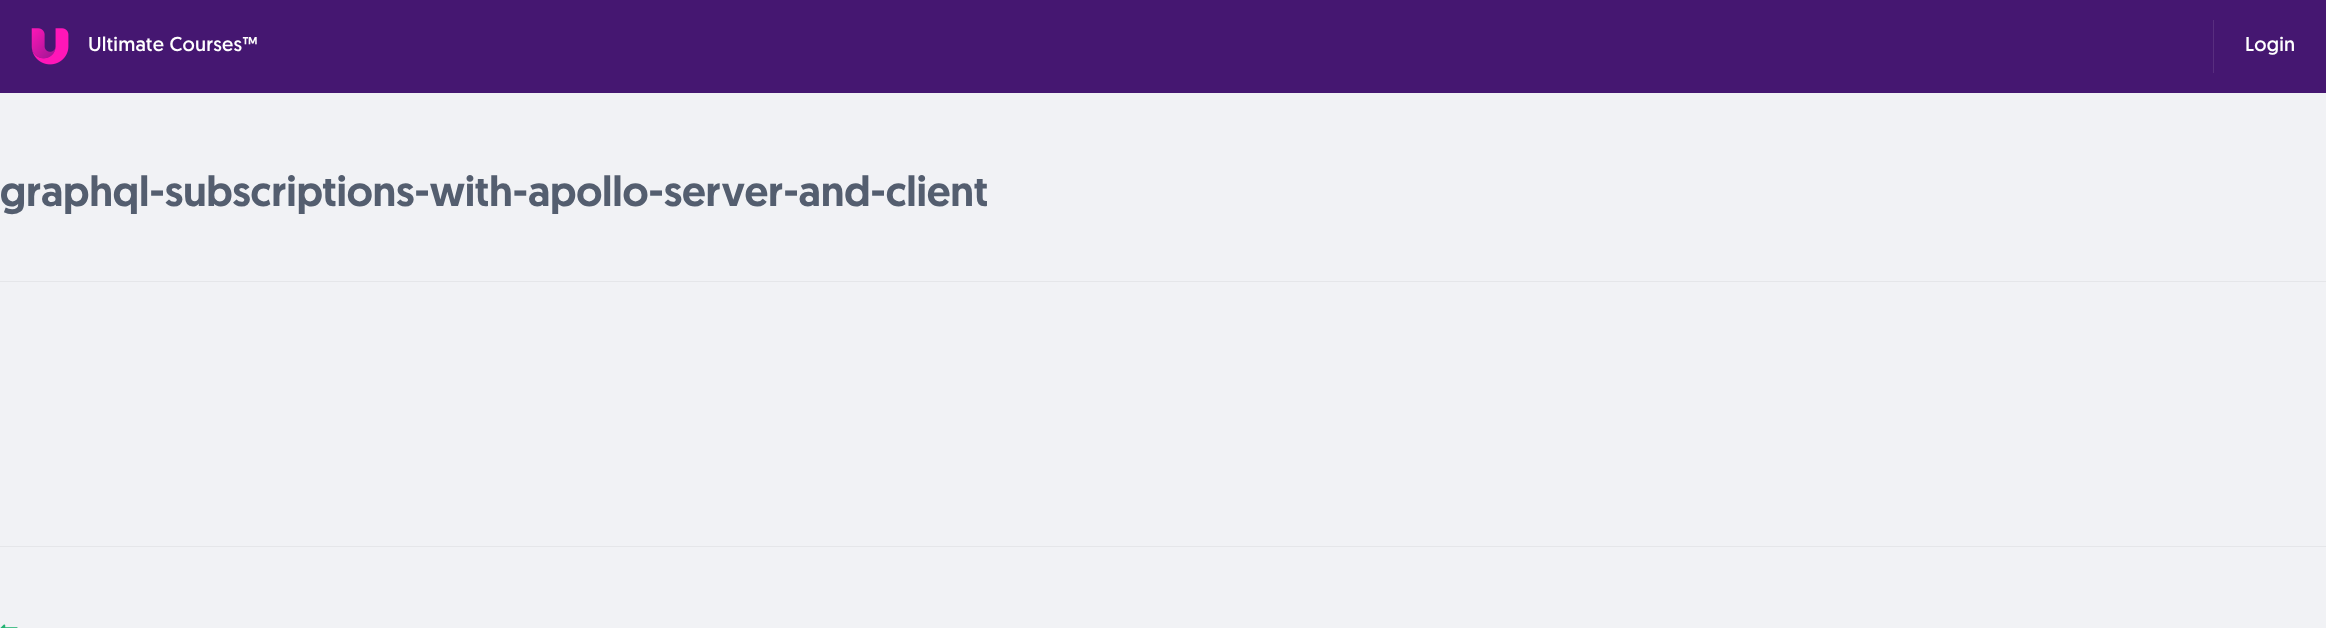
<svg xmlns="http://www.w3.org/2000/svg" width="2326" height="628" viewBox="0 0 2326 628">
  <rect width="100%" height="100%" fill="#f1f2f5"/>
  <rect x="0" y="0" width="2326" height="93" fill="#451771"/>
  <image x="31" y="28" width="38" height="37" href="img1.png"/>
  <text x="88" y="51" font-family="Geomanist" font-size="20" letter-spacing="0.25" fill="#ffffff">Ultimate Courses™</text>
  <rect x="2213" y="20" width="1" height="53" fill="#582e7f"/>
  <text x="2245" y="51" font-family="Geomanist" font-size="20" letter-spacing="0.25" fill="#ffffff">Login</text>
  <rect x="0" y="281" width="2326" height="1" fill="#e5e6e9"/>
  <text x="0" y="206" font-family="Geomanist" font-size="42.5" font-weight="500" letter-spacing="-0.25" fill="#545e6f">graphql-subscriptions-with-apollo-server-and-client</text>
  <rect x="0" y="546" width="2326" height="1" fill="#e5e6e9"/>
  <image x="0" y="624" width="18" height="4" href="img2.png"/>
</svg>
